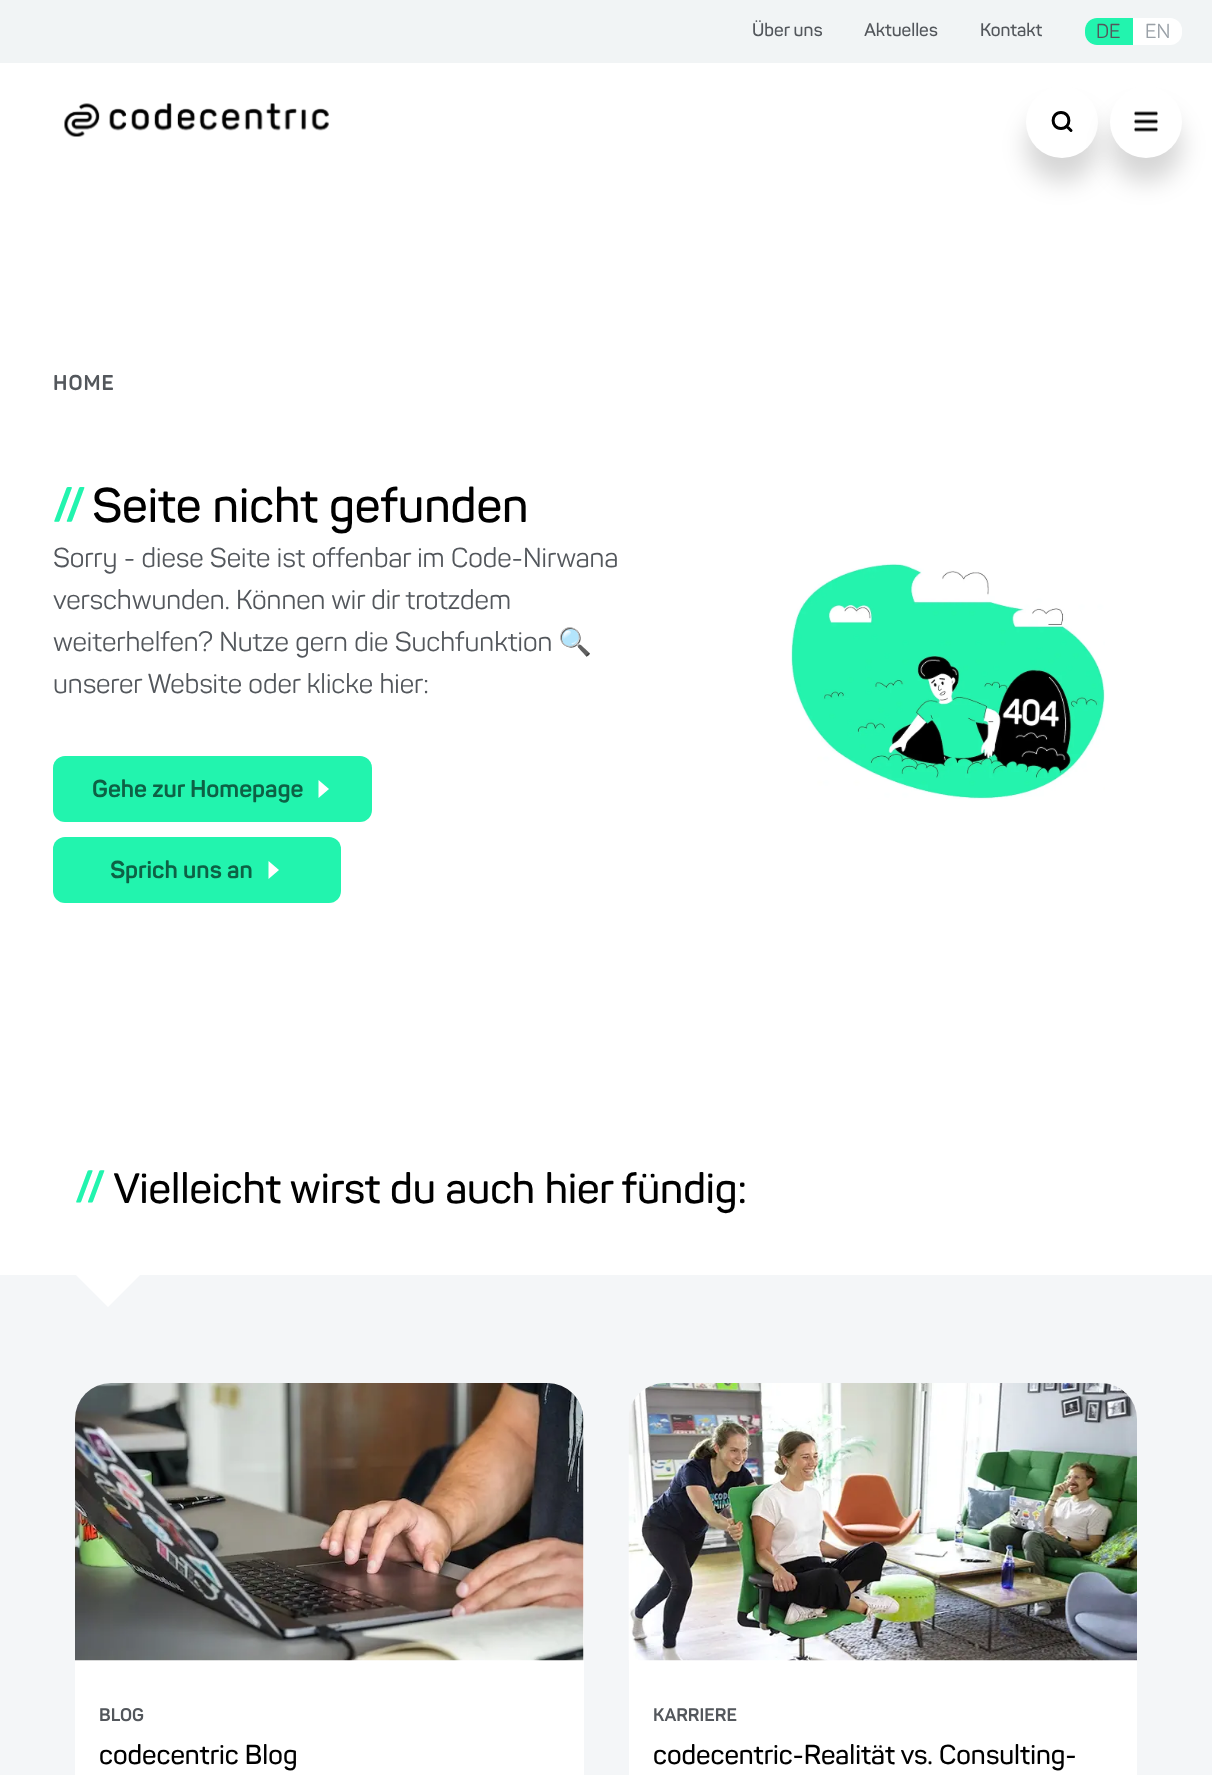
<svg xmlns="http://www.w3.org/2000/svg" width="1212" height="1775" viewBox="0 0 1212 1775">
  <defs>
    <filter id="blur1" x="-50%" y="-200%" width="200%" height="500%"><feGaussianBlur stdDeviation="12"/></filter>
  </defs>
  <rect width="100%" height="100%" fill="#ffffff"/>
  <rect x="0" y="0" width="1212" height="63" fill="#f1f4f5"/>
  <text x="752" y="36" font-family="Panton" font-size="18" font-weight="600" fill="#53575c">Über uns</text>
  <text x="864" y="36" font-family="Panton" font-size="18" font-weight="600" fill="#53575c">Aktuelles</text>
  <text x="980" y="36" font-family="Panton" font-size="18" font-weight="600" fill="#53575c">Kontakt</text>
  <rect x="1085" y="18" width="97" height="27" rx="12" fill="#ffffff"/>
  <path d="M1097 18H1133V45H1097C1090.5 45 1085 39.5 1085 33V30C1085 23.5 1090.5 18 1097 18Z" fill="#22f4ae"/>
  <text x="1096" y="38" font-family="Panton" font-size="20" fill="#53575c">DE</text>
  <text x="1145" y="38" font-family="Panton" font-size="20" fill="#99a0a7">EN</text>
  <image x="64" y="103" width="265" height="34" href="img1.png"/>
  <rect x="1026" y="110" width="72" height="72" rx="36" fill="#000000" fill-opacity="0.16" filter="url(#blur1)"/>
  <circle cx="1062" cy="122" r="36" fill="#ffffff"/>
  <path d="M1061 128.5C1071.5 128.5 1071.5 112.5 1061 112.5C1050.5 112.5 1050.5 128.5 1061 128.5ZM1071 130.5L1066.5 126" fill="none" stroke="#000000" stroke-width="3" stroke-linecap="round" stroke-linejoin="round"/>
  <rect x="1110" y="110" width="72" height="72" rx="36" fill="#000000" fill-opacity="0.16" filter="url(#blur1)"/>
  <circle cx="1146" cy="122" r="36" fill="#ffffff"/>
  <image x="1134" y="111" width="24" height="21" href="img2.png"/>
  <text x="53" y="390" font-family="Panton" font-size="21" font-weight="bold" letter-spacing="1" fill="#53575c">HOME</text>
  <text x="53" y="519" font-family="Panton" font-size="45" font-weight="bold" fill="#22f4ae">//</text>
  <text x="92" y="522" font-family="Panton" font-size="48" font-weight="600" fill="#000000">Seite nicht gefunden</text>
  <text x="53" y="567" font-family="Panton" font-size="27" fill="#53575c">Sorry - diese Seite ist offenbar im Code-Nirwana</text>
  <text x="53" y="609" font-family="Panton" font-size="27" fill="#53575c">verschwunden. Können wir dir trotzdem</text>
  <text x="53" y="651" font-family="Panton" font-size="27" fill="#53575c">weiterhelfen? Nutze gern die Suchfunktion</text>
  <text x="558" y="651" font-family="Noto Color Emoji" font-size="27" fill="#53575c">🔍</text>
  <text x="53" y="693" font-family="Panton" font-size="27" fill="#53575c">unserer Website oder klicke hier:</text>
  <rect x="53" y="756" width="319" height="66" rx="12" fill="#22f4ae"/>
  <text x="92" y="797" font-family="Panton" font-size="24" font-weight="bold" fill="#0d6145">Gehe zur Homepage</text>
  <path d="M318.5 798V780L329 789Z" fill="#ffffff"/>
  <rect x="53" y="837" width="288" height="66" rx="12" fill="#22f4ae"/>
  <text x="110" y="878" font-family="Panton" font-size="24" font-weight="bold" fill="#0d6145">Sprich uns an</text>
  <path d="M268.5 879V861L279 870Z" fill="#ffffff"/>
  <image x="791" y="563" width="314" height="236" href="img3.png"/>
  <text x="75" y="1200" font-family="Panton" font-size="42" font-weight="bold" fill="#22f4ae">//</text>
  <text x="113" y="1203" font-family="Panton" font-size="42" font-weight="600" fill="#000000">Vielleicht wirst du auch hier fündig:</text>
  <rect x="0" y="1275" width="1212" height="500" fill="#f4f6f8"/>
  <path d="M108 1243L140 1275L108 1307L76 1275Z" fill="#ffffff"/>
  <path d="M111 1383H548C568 1383 584 1399 584 1419V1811H75V1419C75 1399 91 1383 111 1383Z" fill="#ffffff"/>
  <image x="75" y="1383" width="509" height="278" href="img4.png"/>
  <text x="99" y="1721" font-family="Panton" font-size="18" font-weight="bold" fill="#53575c">BLOG</text>
  <text x="99" y="1764" font-family="Panton" font-size="27" font-weight="600" fill="#000000">codecentric Blog</text>
  <path d="M665 1383H1101C1121 1383 1137 1399 1137 1419V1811H629V1419C629 1399 645 1383 665 1383Z" fill="#ffffff"/>
  <image x="628" y="1383" width="509" height="278" href="img5.png"/>
  <text x="653" y="1721" font-family="Panton" font-size="18" font-weight="bold" fill="#53575c">KARRIERE</text>
  <text x="653" y="1764" font-family="Panton" font-size="27" font-weight="600" fill="#000000">codecentric-Realität vs. Consulting-</text>
</svg>
